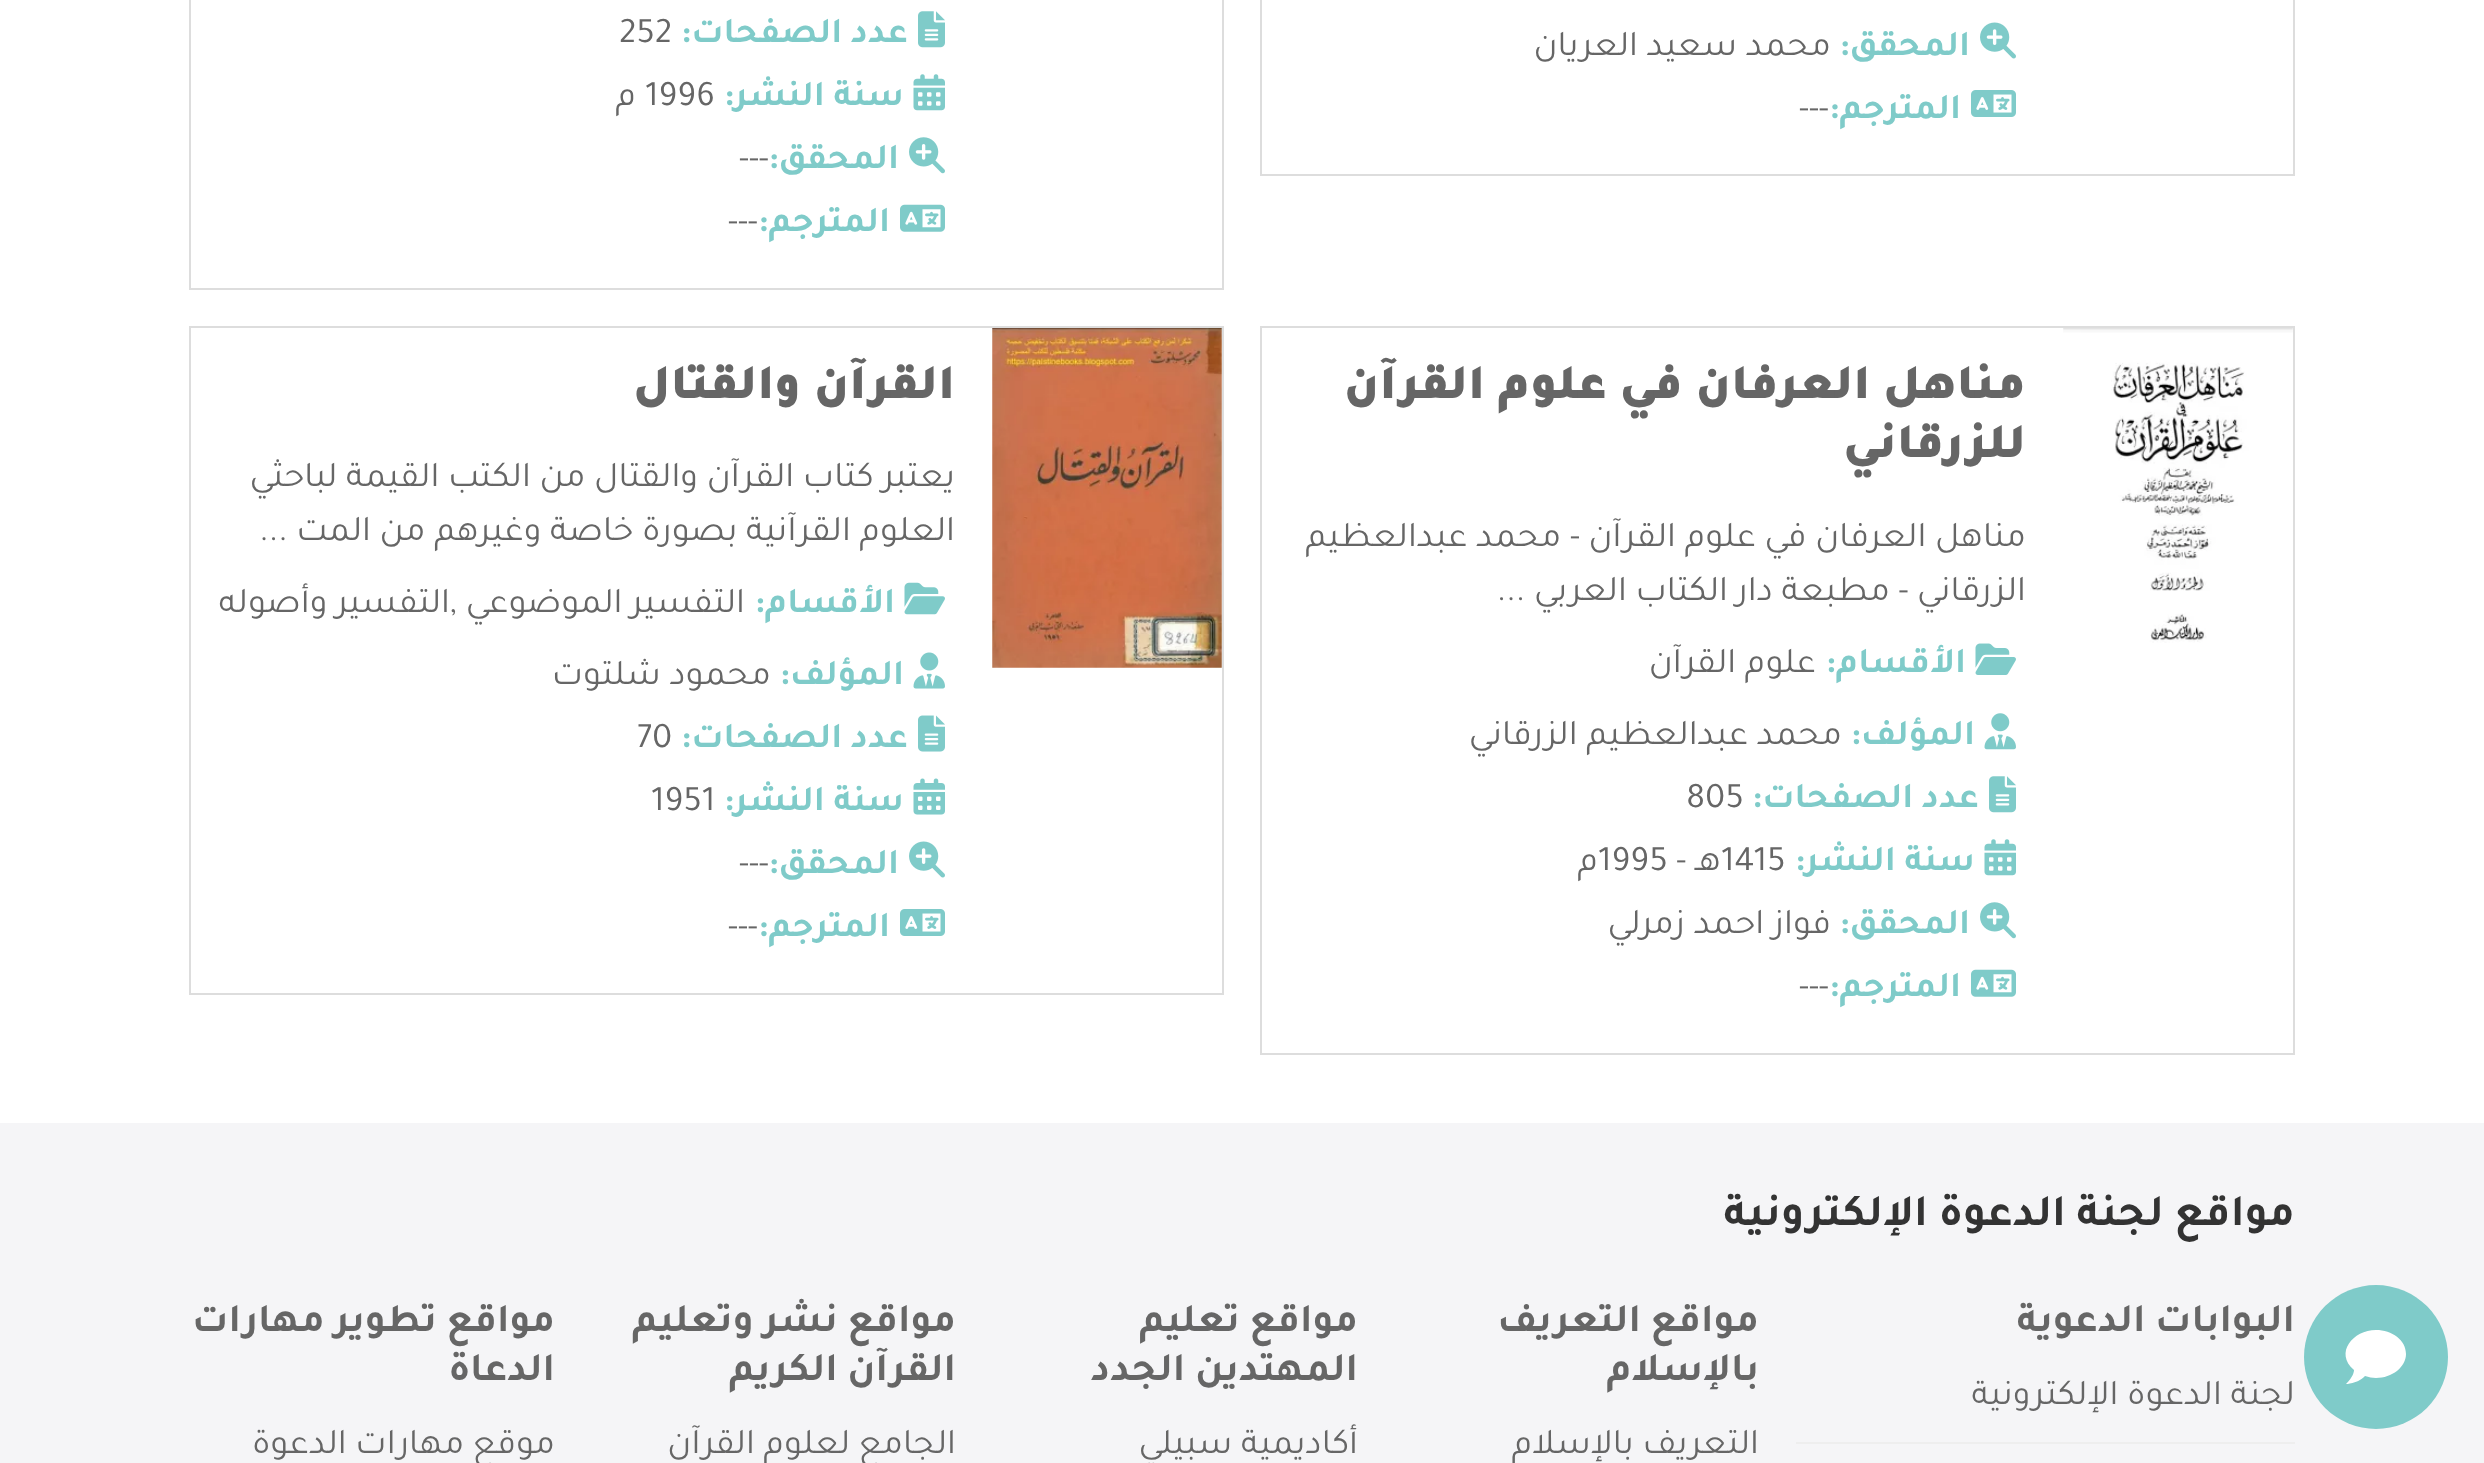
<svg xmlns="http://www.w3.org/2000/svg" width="2484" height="1463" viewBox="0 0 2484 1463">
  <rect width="100%" height="100%" fill="#ffffff"/>
  <rect x="1261" y="-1" width="1033" height="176" fill="none" stroke="#dddddd" stroke-width="2"/>
  <image x="1980" y="22" width="36" height="37" href="img1.png"/>
  <text x="1970" y="55" font-family="Tajawal" font-size="36" font-weight="bold" direction="rtl" fill="#7fcbc9">المحقق:</text>
  <text x="1831" y="55" font-family="Tajawal" font-size="36" direction="rtl" fill="#666666">محمد سعيد العريان</text>
  <image x="1971" y="90" width="45" height="27" href="img2.png"/>
  <text x="1961" y="118" font-family="Tajawal" font-size="36" font-weight="bold" direction="rtl" fill="#7fcbc9">المترجم:</text>
  <text x="1799" y="118" font-family="Tajawal" font-size="36" fill="#666666">---</text>
  <rect x="190" y="-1" width="1033" height="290" fill="none" stroke="#dddddd" stroke-width="2"/>
  <image x="918" y="11" width="27" height="37" href="img3.png"/>
  <text x="908" y="42" font-family="Tajawal" font-size="36" font-weight="bold" direction="rtl" fill="#7fcbc9">عدد الصفحات:</text>
  <text x="619" y="42" font-family="Tajawal" font-size="36" fill="#666666">252</text>
  <image x="913" y="74" width="32" height="37" href="img4.png"/>
  <text x="904" y="105" font-family="Tajawal" font-size="36" font-weight="bold" direction="rtl" fill="#7fcbc9">سنة النشر:</text>
  <text x="645" y="105" font-family="Tajawal" font-size="36" fill="#666666">1996</text>
  <text x="636" y="105" font-family="Tajawal" font-size="36" direction="rtl" fill="#666666">م</text>
  <image x="909" y="137" width="36" height="37" href="img5.png"/>
  <text x="899" y="168" font-family="Tajawal" font-size="36" font-weight="bold" direction="rtl" fill="#7fcbc9">المحقق:</text>
  <text x="739" y="168" font-family="Tajawal" font-size="36" fill="#666666">---</text>
  <image x="900" y="204" width="45" height="28" href="img6.png"/>
  <text x="890" y="231" font-family="Tajawal" font-size="36" font-weight="bold" direction="rtl" fill="#7fcbc9">المترجم:</text>
  <text x="728" y="231" font-family="Tajawal" font-size="36" fill="#666666">---</text>
  <rect x="1261" y="327" width="1033" height="727" fill="none" stroke="#dddddd" stroke-width="2"/>
  <image x="2063" y="328" width="230" height="315" href="img7.png"/>
  <text x="2026" y="398" font-family="Tajawal" font-size="49.5" font-weight="900" direction="rtl" fill="#666666">مناهل العرفان في علوم القرآن</text>
  <text x="2026" y="457" font-family="Tajawal" font-size="49.5" font-weight="900" direction="rtl" fill="#666666">للزرقاني</text>
  <text x="2026" y="546" font-family="Tajawal" font-size="36" direction="rtl" fill="#666666">مناهل العرفان في علوم القرآن - محمد عبدالعظيم</text>
  <text x="2026" y="600" font-family="Tajawal" font-size="36" direction="rtl" fill="#666666">الزرقاني - مطبعة دار الكتاب العربي ...</text>
  <image x="1975" y="643" width="41" height="32" href="img8.png"/>
  <text x="1966" y="672" font-family="Tajawal" font-size="36" font-weight="bold" direction="rtl" fill="#7fcbc9">الأقسام:</text>
  <text x="1816" y="672" font-family="Tajawal" font-size="36" direction="rtl" fill="#666666">علوم القرآن</text>
  <image x="1984" y="713" width="32" height="37" href="img9.png"/>
  <text x="1975" y="744" font-family="Tajawal" font-size="36" font-weight="bold" direction="rtl" fill="#7fcbc9">المؤلف:</text>
  <text x="1842" y="744" font-family="Tajawal" font-size="36" direction="rtl" fill="#666666">محمد عبدالعظيم الزرقاني</text>
  <image x="1989" y="776" width="27" height="37" href="img3.png"/>
  <text x="1979" y="807" font-family="Tajawal" font-size="36" font-weight="bold" direction="rtl" fill="#7fcbc9">عدد الصفحات:</text>
  <text x="1686" y="807" font-family="Tajawal" font-size="36" fill="#666666">805</text>
  <image x="1984" y="839" width="32" height="37" href="img4.png"/>
  <text x="1975" y="870" font-family="Tajawal" font-size="36" font-weight="bold" direction="rtl" fill="#7fcbc9">سنة النشر:</text>
  <text x="1721" y="870" font-family="Tajawal" font-size="36" fill="#666666">1415</text>
  <text x="1721" y="870" font-family="Tajawal" font-size="36" direction="rtl" fill="#666666">هـ -</text>
  <text x="1598" y="870" font-family="Tajawal" font-size="36" fill="#666666">1995</text>
  <text x="1598" y="870" font-family="Tajawal" font-size="36" direction="rtl" fill="#666666">م</text>
  <image x="1980" y="902" width="36" height="37" href="img5.png"/>
  <text x="1970" y="933" font-family="Tajawal" font-size="36" font-weight="bold" direction="rtl" fill="#7fcbc9">المحقق:</text>
  <text x="1831" y="933" font-family="Tajawal" font-size="36" direction="rtl" fill="#666666">فواز احمد زمرلي</text>
  <image x="1971" y="969" width="45" height="28" href="img6.png"/>
  <text x="1961" y="996" font-family="Tajawal" font-size="36" font-weight="bold" direction="rtl" fill="#7fcbc9">المترجم:</text>
  <text x="1799" y="996" font-family="Tajawal" font-size="36" fill="#666666">---</text>
  <rect x="190" y="327" width="1033" height="667" fill="none" stroke="#dddddd" stroke-width="2"/>
  <image x="992" y="328" width="230" height="340" href="img10.png"/>
  <text x="955" y="398" font-family="Tajawal" font-size="49.5" font-weight="900" direction="rtl" fill="#666666">القرآن والقتال</text>
  <text x="955" y="486" font-family="Tajawal" font-size="36" direction="rtl" fill="#666666">يعتبر كتاب القرآن والقتال من الكتب القيمة لباحثي</text>
  <text x="955" y="540" font-family="Tajawal" font-size="36" direction="rtl" fill="#666666">العلوم القرآنية بصورة خاصة وغيرهم من المت ...</text>
  <image x="904" y="582" width="41" height="33" href="img11.png"/>
  <text x="895" y="612" font-family="Tajawal" font-size="36" font-weight="bold" direction="rtl" fill="#7fcbc9">الأقسام:</text>
  <text x="745" y="612" font-family="Tajawal" font-size="36" direction="rtl" fill="#666666">التفسير الموضوعي</text>
  <text x="450" y="612" font-family="Tajawal" font-size="36" fill="#666666">,</text>
  <text x="450" y="612" font-family="Tajawal" font-size="36" direction="rtl" fill="#666666">التفسير وأصوله</text>
  <image x="913" y="652" width="32" height="37" href="img12.png"/>
  <text x="904" y="684" font-family="Tajawal" font-size="36" font-weight="bold" direction="rtl" fill="#7fcbc9">المؤلف:</text>
  <text x="771" y="684" font-family="Tajawal" font-size="36" direction="rtl" fill="#666666">محمود شلتوت</text>
  <image x="918" y="715" width="27" height="37" href="img13.png"/>
  <text x="908" y="747" font-family="Tajawal" font-size="36" font-weight="bold" direction="rtl" fill="#7fcbc9">عدد الصفحات:</text>
  <text x="637" y="747" font-family="Tajawal" font-size="36" fill="#666666">70</text>
  <image x="913" y="778" width="32" height="37" href="img14.png"/>
  <text x="904" y="810" font-family="Tajawal" font-size="36" font-weight="bold" direction="rtl" fill="#7fcbc9">سنة النشر:</text>
  <text x="651" y="810" font-family="Tajawal" font-size="36" fill="#666666">1951</text>
  <image x="909" y="841" width="36" height="37" href="img1.png"/>
  <text x="899" y="873" font-family="Tajawal" font-size="36" font-weight="bold" direction="rtl" fill="#7fcbc9">المحقق:</text>
  <text x="739" y="873" font-family="Tajawal" font-size="36" fill="#666666">---</text>
  <image x="900" y="909" width="45" height="27" href="img2.png"/>
  <text x="890" y="936" font-family="Tajawal" font-size="36" font-weight="bold" direction="rtl" fill="#7fcbc9">المترجم:</text>
  <text x="728" y="936" font-family="Tajawal" font-size="36" fill="#666666">---</text>
  <rect x="0" y="1123" width="2484" height="340" fill="#f5f5f7"/>
  <circle cx="2376" cy="1357" r="72" fill="#7fcbc9"/>
  <path d="M2376 1330C2392 1330 2406 1340 2406 1354C2406 1367 2392 1378 2376 1378C2372 1378 2369 1377 2365 1376C2357 1384 2346 1384 2346 1384C2353 1377 2354 1372 2354 1370C2334 1353 2353 1330 2376 1330" fill="#ffffff"/>
  <text x="2295" y="1225" font-family="Tajawal" font-size="45" font-weight="bold" direction="rtl" fill="#333333">مواقع لجنة الدعوة الإلكترونية</text>
  <text x="2295" y="1331" font-family="Tajawal" font-size="40.5" font-weight="bold" direction="rtl" fill="#666666">البوابات الدعوية</text>
  <rect x="1796" y="1442" width="499" height="2" fill="#eeeeee"/>
  <text x="2295" y="1404" font-family="Tajawal" font-size="36" direction="rtl" fill="#666666">لجنة الدعوة الإلكترونية</text>
  <text x="1759" y="1331" font-family="Tajawal" font-size="40.5" font-weight="bold" direction="rtl" fill="#666666">مواقع التعريف</text>
  <text x="1759" y="1380" font-family="Tajawal" font-size="40.5" font-weight="bold" direction="rtl" fill="#666666">بالإسلام</text>
  <text x="1759" y="1453" font-family="Tajawal" font-size="36" direction="rtl" fill="#666666">التعريف بالإسلام</text>
  <text x="1358" y="1331" font-family="Tajawal" font-size="40.5" font-weight="bold" direction="rtl" fill="#666666">مواقع تعليم</text>
  <text x="1358" y="1380" font-family="Tajawal" font-size="40.5" font-weight="bold" direction="rtl" fill="#666666">المهتدين الجدد</text>
  <text x="1358" y="1453" font-family="Tajawal" font-size="36" direction="rtl" fill="#666666">أكاديمية سبيلي</text>
  <text x="956" y="1331" font-family="Tajawal" font-size="40.5" font-weight="bold" direction="rtl" fill="#666666">مواقع نشر وتعليم</text>
  <text x="956" y="1380" font-family="Tajawal" font-size="40.5" font-weight="bold" direction="rtl" fill="#666666">القرآن الكريم</text>
  <text x="956" y="1453" font-family="Tajawal" font-size="36" direction="rtl" fill="#666666">الجامع لعلوم القرآن</text>
  <text x="555" y="1331" font-family="Tajawal" font-size="40.5" font-weight="bold" direction="rtl" fill="#666666">مواقع تطوير مهارات</text>
  <text x="555" y="1380" font-family="Tajawal" font-size="40.5" font-weight="bold" direction="rtl" fill="#666666">الدعاة</text>
  <text x="555" y="1453" font-family="Tajawal" font-size="36" direction="rtl" fill="#666666">موقع مهارات الدعوة</text>
</svg>
